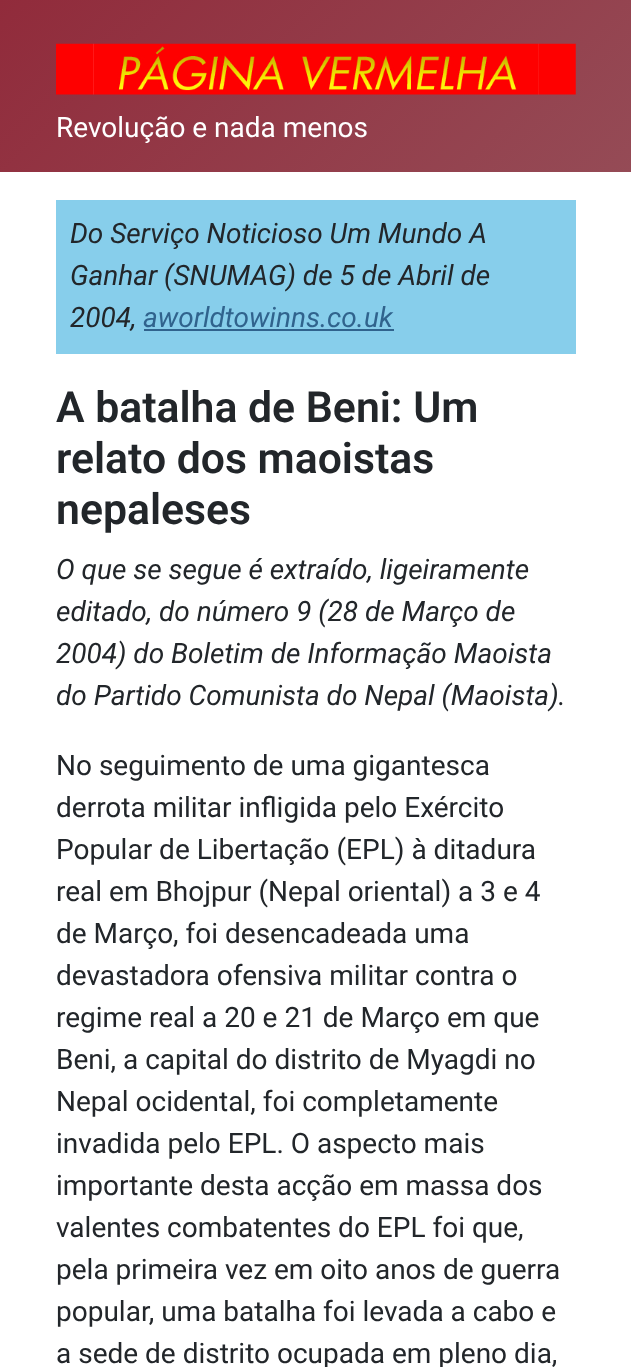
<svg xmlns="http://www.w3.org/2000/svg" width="631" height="1367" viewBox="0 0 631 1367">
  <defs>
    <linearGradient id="g1" gradientUnits="userSpaceOnUse" x1="115" y1="-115" x2="517" y2="287"><stop offset="0" stop-color="#912b3b"/><stop offset="1" stop-color="#954b56"/></linearGradient>
  </defs>
  <rect width="100%" height="100%" fill="#ffffff"/>
  <rect x="0" y="0" width="631" height="172" fill="url(#g1)"/>
  <image x="56" y="43" width="520" height="52" href="img1.png"/>
  <text x="56" y="137" font-family="Roboto" font-size="28" fill="#ffffff">Revolução e nada menos</text>
  <rect x="56" y="200" width="520" height="154" fill="#87ceeb"/>
  <text x="70" y="243" font-family="Roboto" font-size="28" font-style="italic" fill="#22262a">Do Serviço Noticioso Um Mundo A</text>
  <text x="70" y="285" font-family="Roboto" font-size="28" font-style="italic" fill="#22262a">Ganhar (SNUMAG) de 5 de Abril de</text>
  <text x="70" y="327" font-family="Roboto" font-size="28" font-style="italic" fill="#22262a">2004,</text>
  <text x="143" y="327" font-family="Roboto" font-size="28" font-style="italic" fill="#30638d">aworldtowinns.co.uk</text>
  <rect x="144" y="329" width="250" height="2" fill="#30638d"/>
  <text x="56" y="422" font-family="Roboto" font-size="42.75" font-weight="600" fill="#22262a">A batalha de Beni: Um</text>
  <text x="56" y="473" font-family="Roboto" font-size="42.75" font-weight="600" fill="#22262a">relato dos maoistas</text>
  <text x="56" y="524" font-family="Roboto" font-size="42.75" font-weight="600" fill="#22262a">nepaleses</text>
  <text x="56" y="579" font-family="Roboto" font-size="28" font-style="italic" fill="#22262a">O que se segue é extraído, ligeiramente</text>
  <text x="56" y="621" font-family="Roboto" font-size="28" font-style="italic" fill="#22262a">editado, do número 9 (28 de Março de</text>
  <text x="56" y="663" font-family="Roboto" font-size="28" font-style="italic" fill="#22262a">2004) do Boletim de Informação Maoista</text>
  <text x="56" y="705" font-family="Roboto" font-size="28" font-style="italic" fill="#22262a">do Partido Comunista do Nepal (Maoista).</text>
  <text x="56" y="775" font-family="Roboto" font-size="28" fill="#22262a">No seguimento de uma gigantesca</text>
  <text x="56" y="817" font-family="Roboto" font-size="28" fill="#22262a">derrota militar infligida pelo Exército</text>
  <text x="56" y="859" font-family="Roboto" font-size="28" fill="#22262a">Popular de Libertação (EPL) à ditadura</text>
  <text x="56" y="901" font-family="Roboto" font-size="28" fill="#22262a">real em Bhojpur (Nepal oriental) a 3 e 4</text>
  <text x="56" y="943" font-family="Roboto" font-size="28" fill="#22262a">de Março, foi desencadeada uma</text>
  <text x="56" y="985" font-family="Roboto" font-size="28" fill="#22262a">devastadora ofensiva militar contra o</text>
  <text x="56" y="1027" font-family="Roboto" font-size="28" fill="#22262a">regime real a 20 e 21 de Março em que</text>
  <text x="56" y="1069" font-family="Roboto" font-size="28" fill="#22262a">Beni, a capital do distrito de Myagdi no</text>
  <text x="56" y="1111" font-family="Roboto" font-size="28" fill="#22262a">Nepal ocidental, foi completamente</text>
  <text x="56" y="1153" font-family="Roboto" font-size="28" fill="#22262a">invadida pelo EPL. O aspecto mais</text>
  <text x="56" y="1195" font-family="Roboto" font-size="28" fill="#22262a">importante desta acção em massa dos</text>
  <text x="56" y="1237" font-family="Roboto" font-size="28" fill="#22262a">valentes combatentes do EPL foi que,</text>
  <text x="56" y="1279" font-family="Roboto" font-size="28" fill="#22262a">pela primeira vez em oito anos de guerra</text>
  <text x="56" y="1321" font-family="Roboto" font-size="28" fill="#22262a">popular, uma batalha foi levada a cabo e</text>
  <text x="56" y="1363" font-family="Roboto" font-size="28" fill="#22262a">a sede de distrito ocupada em pleno dia,</text>
</svg>
